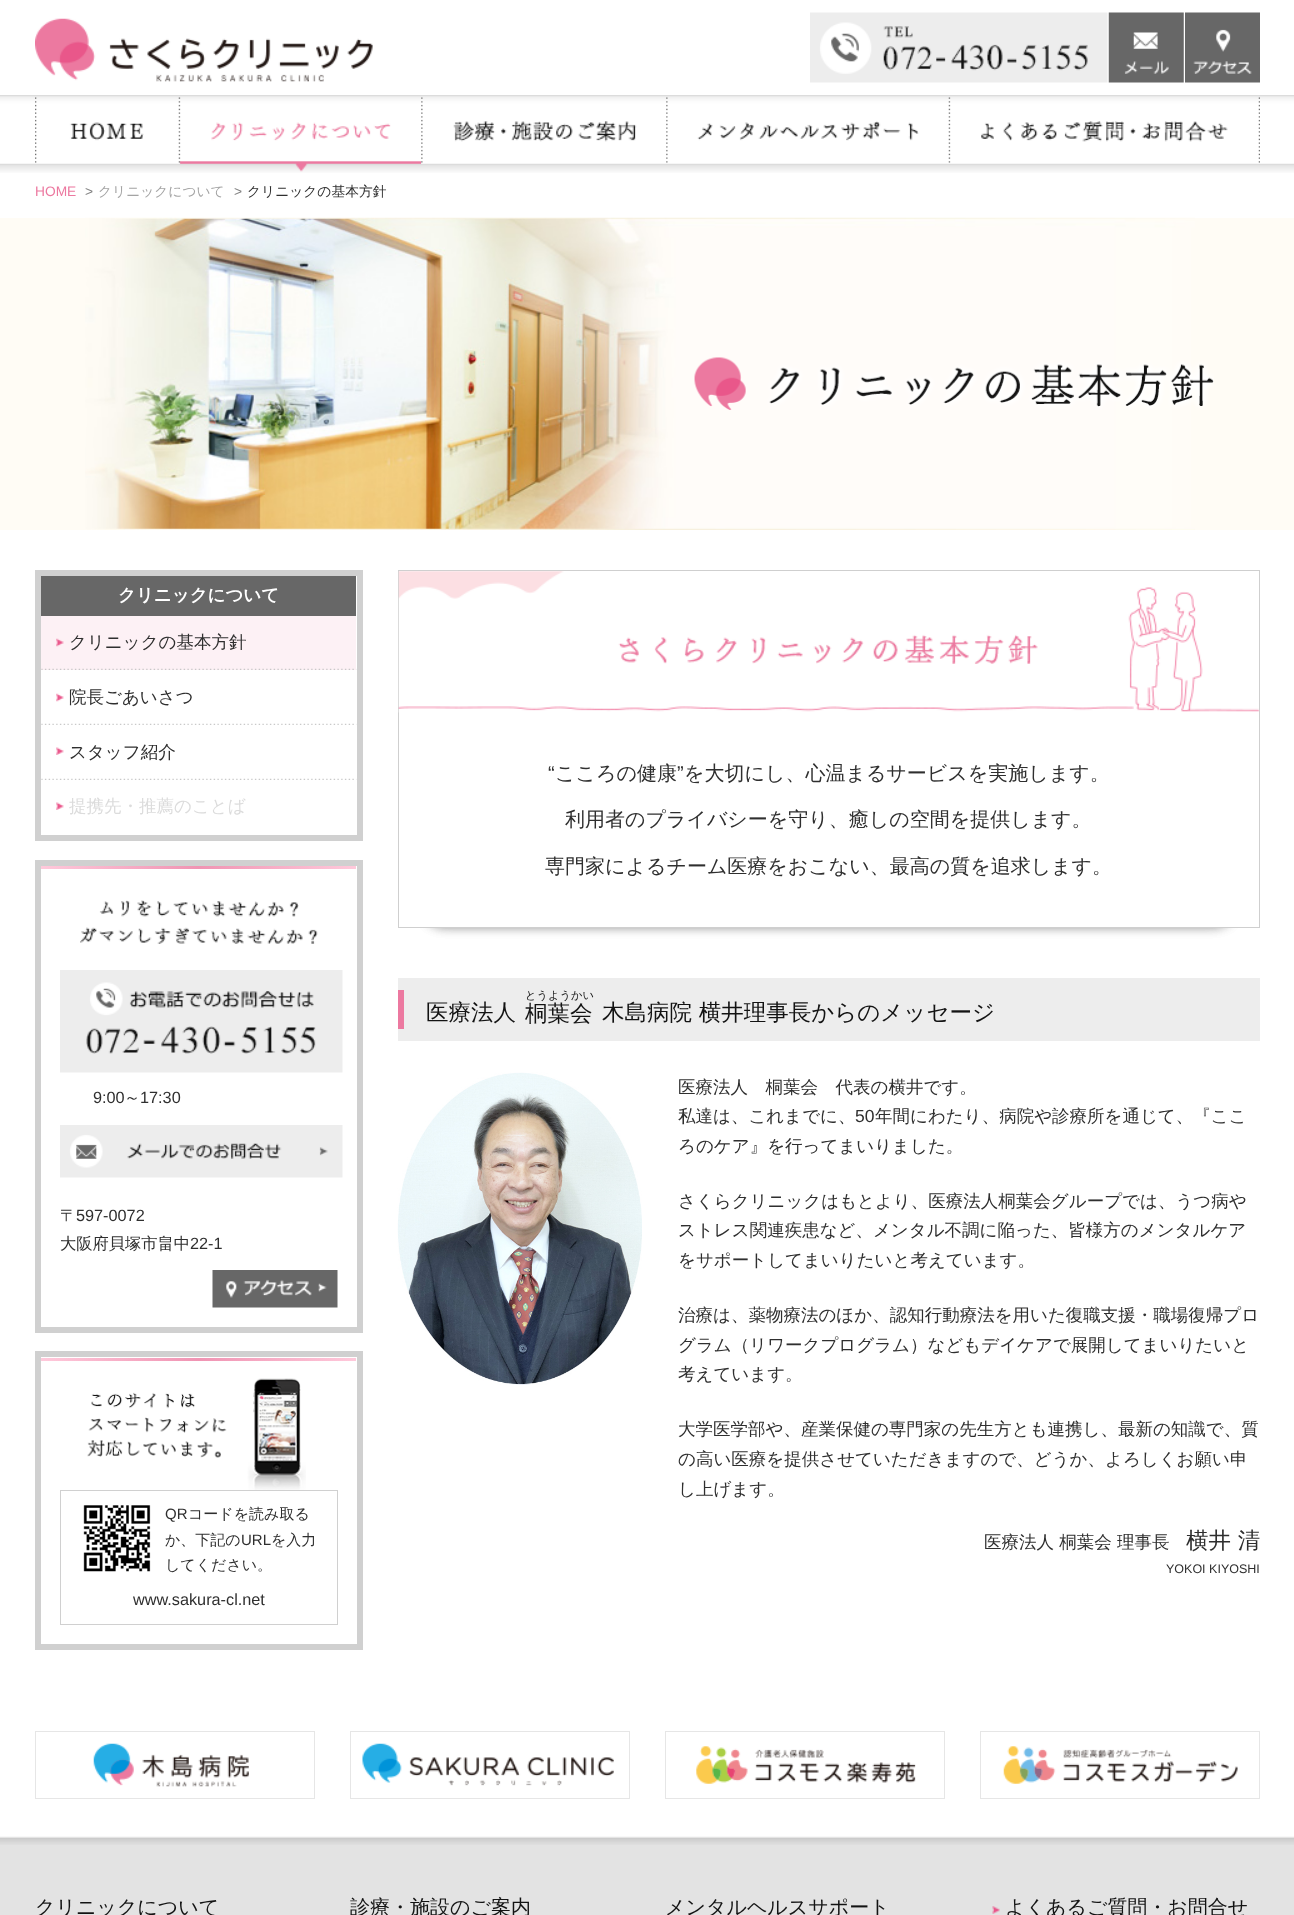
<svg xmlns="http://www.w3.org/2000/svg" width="1294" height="1915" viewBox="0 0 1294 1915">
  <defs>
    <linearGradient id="g1" gradientUnits="userSpaceOnUse" x1="41" y1="868" x2="356" y2="868"><stop offset="0" stop-color="#ffc9db"/><stop offset="0.5" stop-color="#f094b3"/><stop offset="1" stop-color="#ffc9db"/></linearGradient>
    <linearGradient id="g2" gradientUnits="userSpaceOnUse" x1="41" y1="1359" x2="356" y2="1359"><stop offset="0" stop-color="#ffc9db"/><stop offset="0.5" stop-color="#f094b3"/><stop offset="1" stop-color="#ffc9db"/></linearGradient>
    <filter id="blur1" x="-50%" y="-200%" width="200%" height="500%"><feGaussianBlur stdDeviation="6"/></filter>
  </defs>
  <rect width="100%" height="100%" fill="#ffffff"/>
  <image x="35" y="18" width="338" height="64" href="img1.png"/>
  <image x="810" y="12" width="298" height="71" href="img2.png"/>
  <image x="1108" y="12" width="76" height="71" href="img3.png"/>
  <image x="1185" y="12" width="75" height="71" href="img4.png"/>
  <image x="0" y="95" width="1294" height="78" href="img5.png"/>
  <image x="35" y="97" width="109" height="66" href="img6.png"/>
  <image x="178" y="97" width="244" height="75" href="img7.png"/>
  <image x="421" y="97" width="216" height="67" href="img8.png"/>
  <image x="666" y="97" width="253" height="66" href="img9.png"/>
  <image x="948" y="97" width="312" height="66" href="img10.png"/>
  <text x="35" y="196" font-family="Liberation Sans" font-size="13.75" fill="#ec79a0">HOME</text>
  <text x="85" y="196" font-family="Liberation Sans" font-size="13.75" fill="#818181">&gt;</text>
  <text x="98" y="196" font-family="WenQuanYi Zen Hei" font-size="13.75" font-weight="500" fill="#a4a4a4">クリニックについて</text>
  <text x="234" y="196" font-family="Liberation Sans" font-size="13.75" fill="#818181">&gt;</text>
  <text x="247" y="196" font-family="WenQuanYi Zen Hei" font-size="13.75" font-weight="500" fill="#2f2f2f">クリニックの基本方針</text>
  <rect x="0" y="218" width="1294" height="312" fill="#fffcf5"/>
  <image x="85" y="217" width="1110" height="313" href="img11.png"/>
  <image x="694" y="357" width="520" height="53" href="img12.png"/>
  <rect x="38" y="573" width="322" height="265" fill="none" stroke="#d0d0d0" stroke-width="6"/>
  <rect x="41" y="576" width="315" height="40" fill="#676767"/>
  <text x="118" y="601" font-family="WenQuanYi Zen Hei" font-size="17.5" font-weight="bold" fill="#ffffff">クリニックについて</text>
  <rect x="41" y="616" width="315" height="54" fill="#fdf1f5"/>
  <image x="41" y="668" width="316" height="2" href="img13.png"/>
  <image x="56" y="638" width="8" height="9" href="img14.png"/>
  <text x="69" y="648" font-family="WenQuanYi Zen Hei" font-size="17.5" font-weight="500" fill="#2f2f2f">クリニックの基本方針</text>
  <image x="41" y="723" width="316" height="2" href="img15.png"/>
  <image x="56" y="693" width="8" height="9" href="img16.png"/>
  <text x="69" y="703" font-family="WenQuanYi Zen Hei" font-size="17.5" font-weight="500" fill="#2f2f2f">院長ごあいさつ</text>
  <image x="41" y="778" width="316" height="2" href="img15.png"/>
  <image x="56" y="747" width="8" height="8" href="img17.png"/>
  <text x="69" y="758" font-family="WenQuanYi Zen Hei" font-size="17.5" font-weight="500" fill="#2f2f2f">スタッフ紹介</text>
  <image x="56" y="802" width="8" height="8" href="img17.png"/>
  <text x="69" y="812" font-family="WenQuanYi Zen Hei" font-size="17.5" font-weight="500" fill="#dcdcdc">提携先・推薦のことば</text>
  <rect x="38" y="863" width="322" height="467" fill="none" stroke="#d0d0d0" stroke-width="6"/>
  <rect x="41" y="866" width="315" height="3" fill="url(#g1)"/>
  <image x="80" y="900" width="238" height="44" href="img18.png"/>
  <image x="60" y="970" width="283" height="103" href="img19.png"/>
  <text x="93" y="1103" font-family="Liberation Sans" font-size="16.25" fill="#2f2f2f">9:00</text>
  <text x="124" y="1103" font-family="WenQuanYi Zen Hei" font-size="16.25" font-weight="500" fill="#2f2f2f">～</text>
  <text x="140" y="1103" font-family="Liberation Sans" font-size="16.25" fill="#2f2f2f">17:30</text>
  <image x="60" y="1125" width="283" height="53" href="img20.png"/>
  <text x="60" y="1221" font-family="WenQuanYi Zen Hei" font-size="16.25" font-weight="500" fill="#2f2f2f">〒</text>
  <text x="76" y="1221" font-family="Liberation Sans" font-size="16.25" fill="#2f2f2f">597-0072</text>
  <text x="60" y="1249" font-family="WenQuanYi Zen Hei" font-size="16.25" font-weight="500" fill="#2f2f2f">大阪府貝塚市畠中</text>
  <text x="190" y="1249" font-family="Liberation Sans" font-size="16.25" fill="#2f2f2f">22-1</text>
  <image x="212" y="1270" width="126" height="38" href="img21.png"/>
  <rect x="38" y="1354" width="322" height="293" fill="none" stroke="#d0d0d0" stroke-width="6"/>
  <rect x="41" y="1358" width="315" height="3" fill="url(#g2)"/>
  <image x="87" y="1378" width="219" height="112" href="img22.png"/>
  <rect x="60.5" y="1490.5" width="277" height="134" fill="none" stroke="#d0d0d0"/>
  <image x="83" y="1505" width="68" height="67" href="img23.png"/>
  <text x="165" y="1519" font-family="Liberation Sans" font-size="15" fill="#2f2f2f">QR</text>
  <text x="188" y="1519" font-family="WenQuanYi Zen Hei" font-size="15" font-weight="500" fill="#2f2f2f">コードを読み取る</text>
  <text x="165" y="1545" font-family="WenQuanYi Zen Hei" font-size="15" font-weight="500" fill="#2f2f2f">か、下記の</text>
  <text x="241" y="1545" font-family="Liberation Sans" font-size="15" fill="#2f2f2f">URL</text>
  <text x="271" y="1545" font-family="WenQuanYi Zen Hei" font-size="15" font-weight="500" fill="#2f2f2f">を入力</text>
  <text x="165" y="1570" font-family="WenQuanYi Zen Hei" font-size="15" font-weight="500" fill="#2f2f2f">してください。</text>
  <text x="133" y="1605" font-family="Liberation Sans" font-size="16.25" fill="#2f2f2f">www.sakura-cl.net</text>
  <rect x="424" y="749" width="810" height="177" rx="20" fill="#000000" fill-opacity="0.3" filter="url(#blur1)"/>
  <rect x="424" y="749" width="810" height="177" rx="20" fill="#000000" fill-opacity="0.3" filter="url(#blur1)"/>
  <rect x="411" y="736" width="836" height="191" fill="#ffffff"/>
  <rect x="398.5" y="570.5" width="861" height="357" fill="none" stroke="#cfcfcf"/>
  <image x="398" y="571" width="861" height="142" href="img24.png"/>
  <text x="548" y="780" font-family="Liberation Sans" font-size="20" fill="#2f2f2f">“</text>
  <text x="555" y="780" font-family="WenQuanYi Zen Hei" font-size="20" font-weight="500" fill="#2f2f2f">こころの健康</text>
  <text x="677" y="780" font-family="Liberation Sans" font-size="20" fill="#2f2f2f">”</text>
  <text x="684" y="780" font-family="WenQuanYi Zen Hei" font-size="20" font-weight="500" fill="#2f2f2f">を大切にし、心温まるサービスを実施します。</text>
  <text x="565" y="826" font-family="WenQuanYi Zen Hei" font-size="20" font-weight="500" fill="#2f2f2f">利用者のプライバシーを守り、癒しの空間を提供します。</text>
  <text x="545" y="873" font-family="WenQuanYi Zen Hei" font-size="20" font-weight="500" fill="#2f2f2f">専門家によるチーム医療をおこない、最高の質を追求します。</text>
  <rect x="398" y="978" width="862" height="63" fill="#ededed"/>
  <rect x="398" y="990" width="6" height="39" fill="#ec79a0"/>
  <text x="426" y="1020" font-family="WenQuanYi Zen Hei" font-size="22.5" font-weight="500" fill="#131313">医療法人</text>
  <text x="525" y="999" font-family="WenQuanYi Zen Hei" font-size="11.25" font-weight="500" fill="#131313">とうようかい</text>
  <text x="525" y="1021" font-family="WenQuanYi Zen Hei" font-size="22.5" font-weight="500" fill="#131313">桐葉会</text>
  <text x="602" y="1020" font-family="WenQuanYi Zen Hei" font-size="22.5" font-weight="500" fill="#131313">木島病院 横井理事長からのメッセージ</text>
  <image x="397" y="1072" width="245" height="313" href="img25.png"/>
  <text x="678" y="1093" font-family="WenQuanYi Zen Hei" font-size="17.5" font-weight="500" fill="#2f2f2f">医療法人　桐葉会　代表の横井です。</text>
  <text x="678" y="1122" font-family="WenQuanYi Zen Hei" font-size="17.5" font-weight="500" fill="#2f2f2f">私達は、これまでに、</text>
  <text x="855" y="1122" font-family="Liberation Sans" font-size="17.5" fill="#2f2f2f">50</text>
  <text x="875" y="1122" font-family="WenQuanYi Zen Hei" font-size="17.5" font-weight="500" fill="#2f2f2f">年間にわたり、病院や診療所を通じて、『ここ</text>
  <text x="678" y="1152" font-family="WenQuanYi Zen Hei" font-size="17.5" font-weight="500" fill="#2f2f2f">ろのケア』を行ってまいりました。</text>
  <text x="678" y="1207" font-family="WenQuanYi Zen Hei" font-size="17.5" font-weight="500" fill="#2f2f2f">さくらクリニックはもとより、医療法人桐葉会グループでは、うつ病や</text>
  <text x="678" y="1236" font-family="WenQuanYi Zen Hei" font-size="17.5" font-weight="500" fill="#2f2f2f">ストレス関連疾患など、メンタル不調に陥った、皆様方のメンタルケア</text>
  <text x="678" y="1266" font-family="WenQuanYi Zen Hei" font-size="17.5" font-weight="500" fill="#2f2f2f">をサポートしてまいりたいと考えています。</text>
  <text x="678" y="1321" font-family="WenQuanYi Zen Hei" font-size="17.5" font-weight="500" fill="#2f2f2f">治療は、薬物療法のほか、認知行動療法を用いた復職支援・職場復帰プロ</text>
  <text x="678" y="1351" font-family="WenQuanYi Zen Hei" font-size="17.5" font-weight="500" fill="#2f2f2f">グラム（リワークプログラム）などもデイケアで展開してまいりたいと</text>
  <text x="678" y="1380" font-family="WenQuanYi Zen Hei" font-size="17.5" font-weight="500" fill="#2f2f2f">考えています。</text>
  <text x="678" y="1435" font-family="WenQuanYi Zen Hei" font-size="17.5" font-weight="500" fill="#2f2f2f">大学医学部や、産業保健の専門家の先生方とも連携し、最新の知識で、質</text>
  <text x="678" y="1465" font-family="WenQuanYi Zen Hei" font-size="17.5" font-weight="500" fill="#2f2f2f">の高い医療を提供させていただきますので、どうか、よろしくお願い申</text>
  <text x="678" y="1495" font-family="WenQuanYi Zen Hei" font-size="17.5" font-weight="500" fill="#2f2f2f">し上げます。</text>
  <text x="984" y="1548" font-family="WenQuanYi Zen Hei" font-size="17.5" font-weight="500" fill="#2f2f2f">医療法人 桐葉会 理事長</text>
  <text x="1186" y="1548" font-family="WenQuanYi Zen Hei" font-size="22.5" font-weight="500" fill="#2f2f2f">横井 清</text>
  <text x="1166" y="1573" font-family="Liberation Sans" font-size="12.5" fill="#2f2f2f">YOKOI KIYOSHI</text>
  <rect x="35.5" y="1731.5" width="279" height="67" fill="none" stroke="#e6e6e6"/>
  <image x="93" y="1743" width="156" height="44" href="img26.png"/>
  <rect x="350.5" y="1731.5" width="279" height="67" fill="none" stroke="#e6e6e6"/>
  <image x="362" y="1743" width="252" height="43" href="img27.png"/>
  <rect x="665.5" y="1731.5" width="279" height="67" fill="none" stroke="#e6e6e6"/>
  <image x="696" y="1746" width="220" height="38" href="img28.png"/>
  <rect x="980.5" y="1731.5" width="279" height="67" fill="none" stroke="#e6e6e6"/>
  <image x="1003" y="1746" width="235" height="38" href="img29.png"/>
  <rect x="0" y="1836" width="1294" height="79" fill="#e3e3e3"/>
  <image x="0" y="1836" width="1294" height="9" href="img30.png"/>
  <text x="35" y="1914" font-family="WenQuanYi Zen Hei" font-size="20" font-weight="500" fill="#131313">クリニックについて</text>
  <text x="350" y="1914" font-family="WenQuanYi Zen Hei" font-size="20" font-weight="500" fill="#131313">診療・施設のご案内</text>
  <text x="665" y="1914" font-family="WenQuanYi Zen Hei" font-size="20" font-weight="500" fill="#131313">メンタルヘルスサポート</text>
  <image x="992" y="1906" width="8" height="8" href="img31.png"/>
  <text x="1005" y="1914" font-family="WenQuanYi Zen Hei" font-size="20" font-weight="500" fill="#131313">よくあるご質問・お問合せ</text>
</svg>
